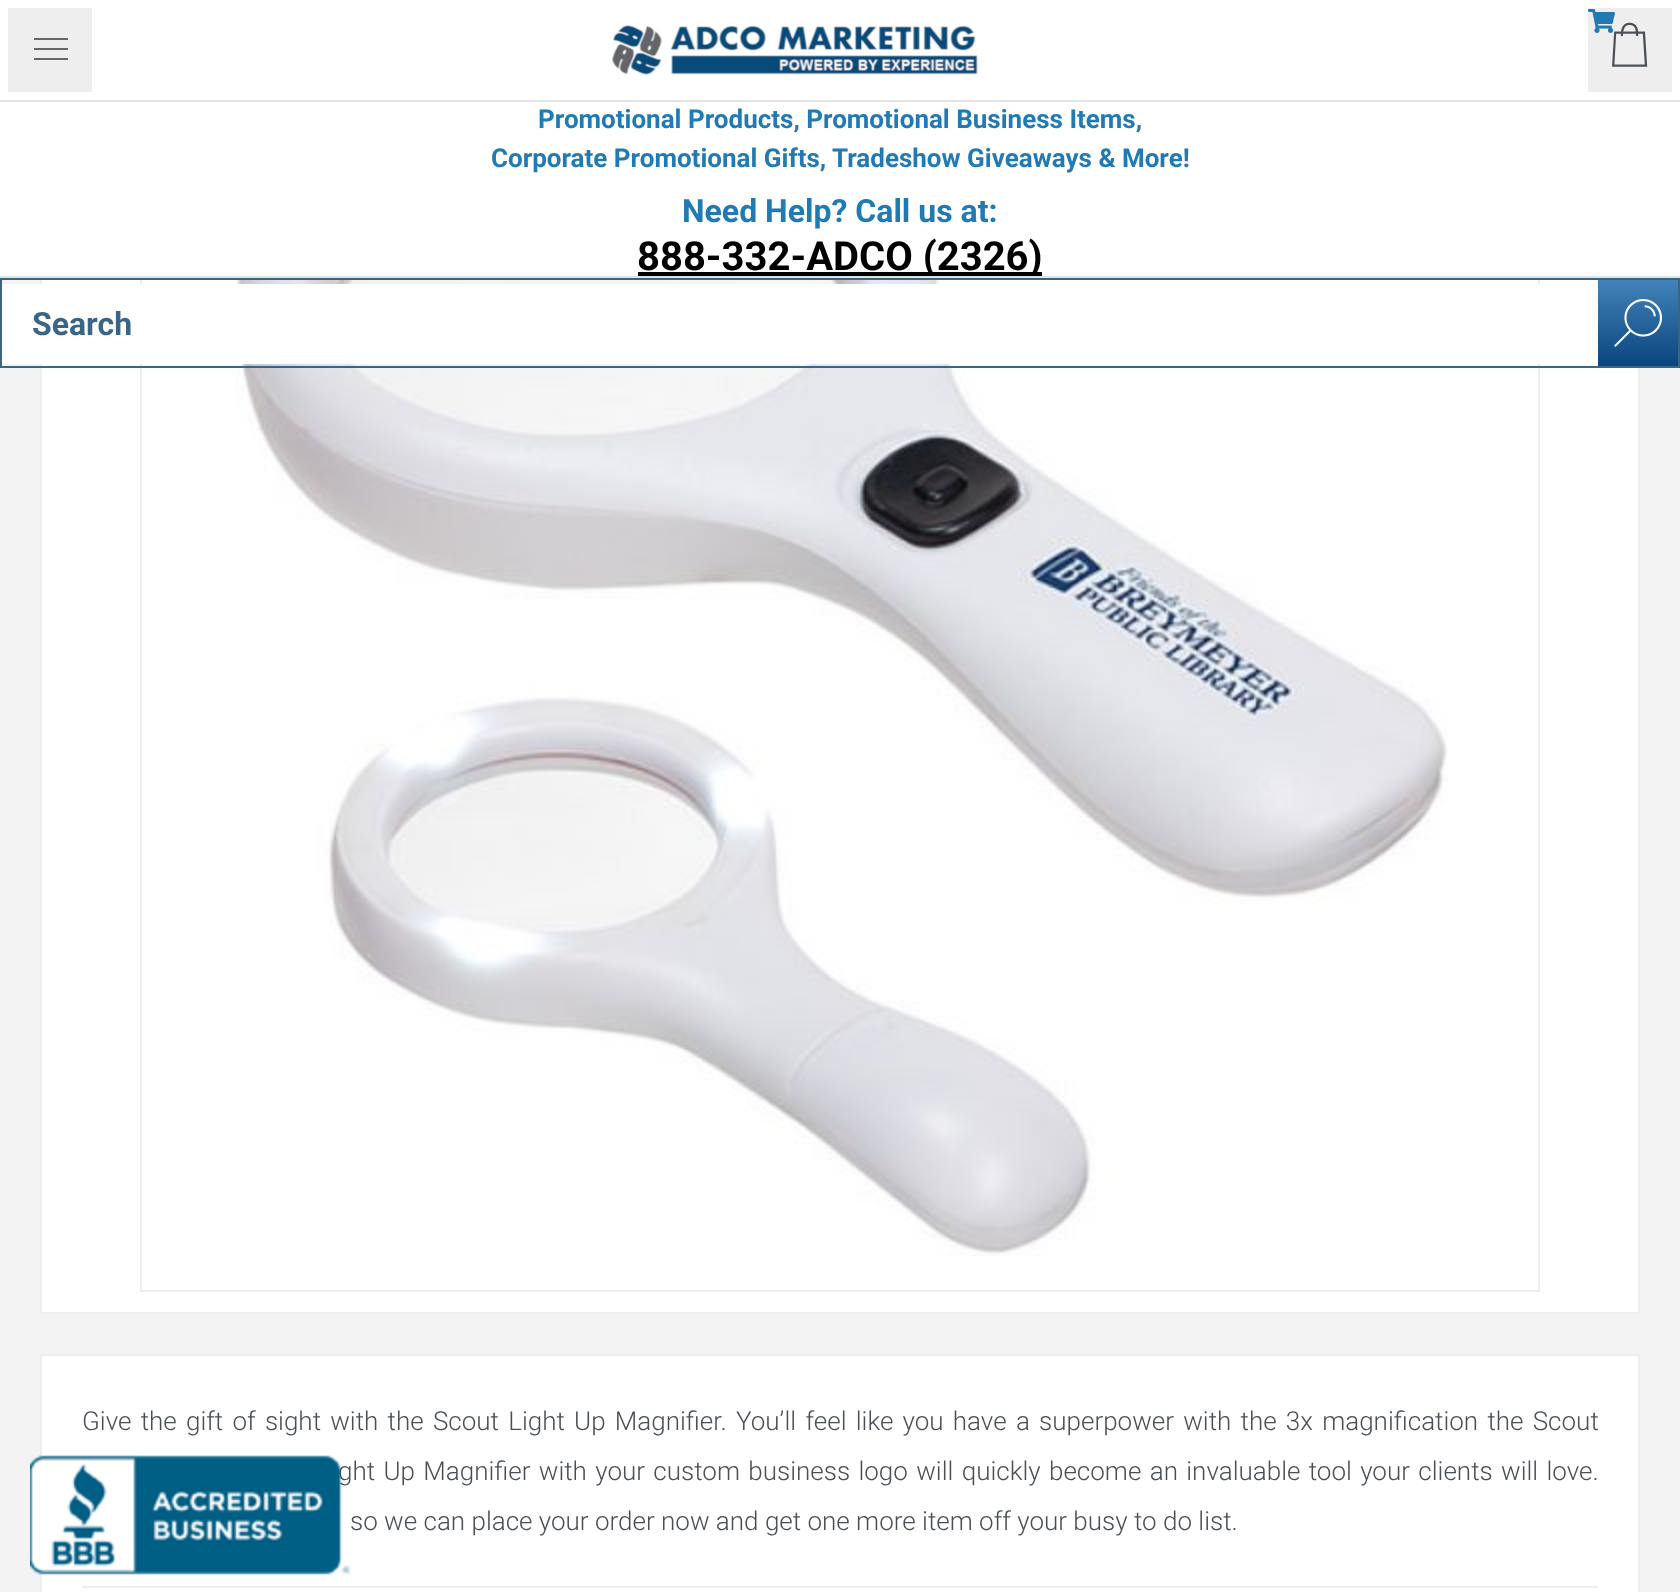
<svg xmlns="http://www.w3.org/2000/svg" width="1680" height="1592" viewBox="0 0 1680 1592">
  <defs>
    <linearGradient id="g1" gradientUnits="userSpaceOnUse" x1="1638" y1="280" x2="1638" y2="366"><stop offset="0" stop-color="#4382ba"/><stop offset="1" stop-color="#09467d"/></linearGradient>
  </defs>
  <rect width="100%" height="100%" fill="#f3f3f3"/>
  <rect x="42" y="280" width="1596" height="1032" fill="#ffffff"/>
  <rect x="41" y="17" width="1598" height="1296" fill="none" stroke="#eeeeee" stroke-width="2"/>
  <rect x="4" y="4" width="92" height="92" fill="#eeeeee" stroke="#ffffff" stroke-width="8"/>
  <rect x="34" y="38" width="34" height="2" fill="#666666"/>
  <rect x="34" y="48" width="34" height="2" fill="#666666"/>
  <rect x="34" y="58" width="34" height="2" fill="#666666"/>
  <rect x="1584" y="4" width="92" height="92" fill="#eeeeee" stroke="#ffffff" stroke-width="8"/>
  <image x="1588" y="9" width="27" height="24" href="img1.png"/>
  <image x="1612" y="22" width="36" height="45" href="img2.png"/>
  <rect x="141" y="39" width="1398" height="1252" fill="none" stroke="#eeeeee" stroke-width="2"/>
  <rect x="0" y="100" width="1680" height="2" fill="#e3e3e3"/>
  <rect x="100" y="0" width="1480" height="100" fill="#ffffff"/>
  <image x="612" y="25" width="366" height="50" href="img3.png"/>
  <rect x="0" y="102" width="1680" height="174" fill="#ffffff"/>
  <text x="538" y="128" font-family="Roboto" font-size="26" font-weight="bold" fill="#227ab4">Promotional Products, Promotional Business Items,</text>
  <text x="491" y="167" font-family="Roboto" font-size="26" font-weight="bold" fill="#227ab4">Corporate Promotional Gifts, Tradeshow Giveaways &amp; More!</text>
  <text x="682" y="222" font-family="Roboto" font-size="32" font-weight="bold" fill="#227ab4">Need Help? Call us at:</text>
  <rect x="638" y="272" width="404" height="4" fill="#000000"/>
  <text x="637" y="270" font-family="Roboto" font-size="40" font-weight="bold" fill="#000000">888-332-ADCO (2326)</text>
  <rect x="0" y="276" width="1680" height="2" fill="#e3e3e3"/>
  <image x="234" y="280" width="1214" height="976" href="img5.png"/>
  <rect x="1" y="279" width="1678" height="88" fill="none" stroke="#396587" stroke-width="2"/>
  <rect x="2" y="284" width="1538" height="80" fill="#ffffff"/>
  <text x="32" y="335" font-family="Roboto" font-size="32" font-weight="bold" fill="#396587">Search</text>
  <rect x="1598" y="280" width="80" height="86" fill="url(#g1)"/>
  <image x="1614" y="299" width="48" height="48" href="img4.png"/>
  <rect x="41" y="1355" width="1598" height="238" fill="#ffffff" stroke="#eeeeee" stroke-width="2"/>
  <rect x="82" y="1586" width="1516" height="2" fill="#eeeeee"/>
  <text x="82" y="1430" word-spacing="2.9" font-family="Roboto" font-size="26" font-weight="300" fill="#494f55">Give the gift of sight with the Scout Light Up Magnifier. You’ll feel like you have a superpower with the 3x magnification the Scout</text>
  <text x="338" y="1480" word-spacing="2" font-family="Roboto" font-size="26" font-weight="300" fill="#494f55">ght Up Magnifier with your custom business logo will quickly become an invaluable tool your clients will love.</text>
  <text x="350" y="1530" font-family="Roboto" font-size="26" font-weight="300" fill="#494f55">so we can place your order now and get one more item off your busy to do list.</text>
  <image x="30" y="1455" width="320" height="120" href="img6.png"/>
</svg>
